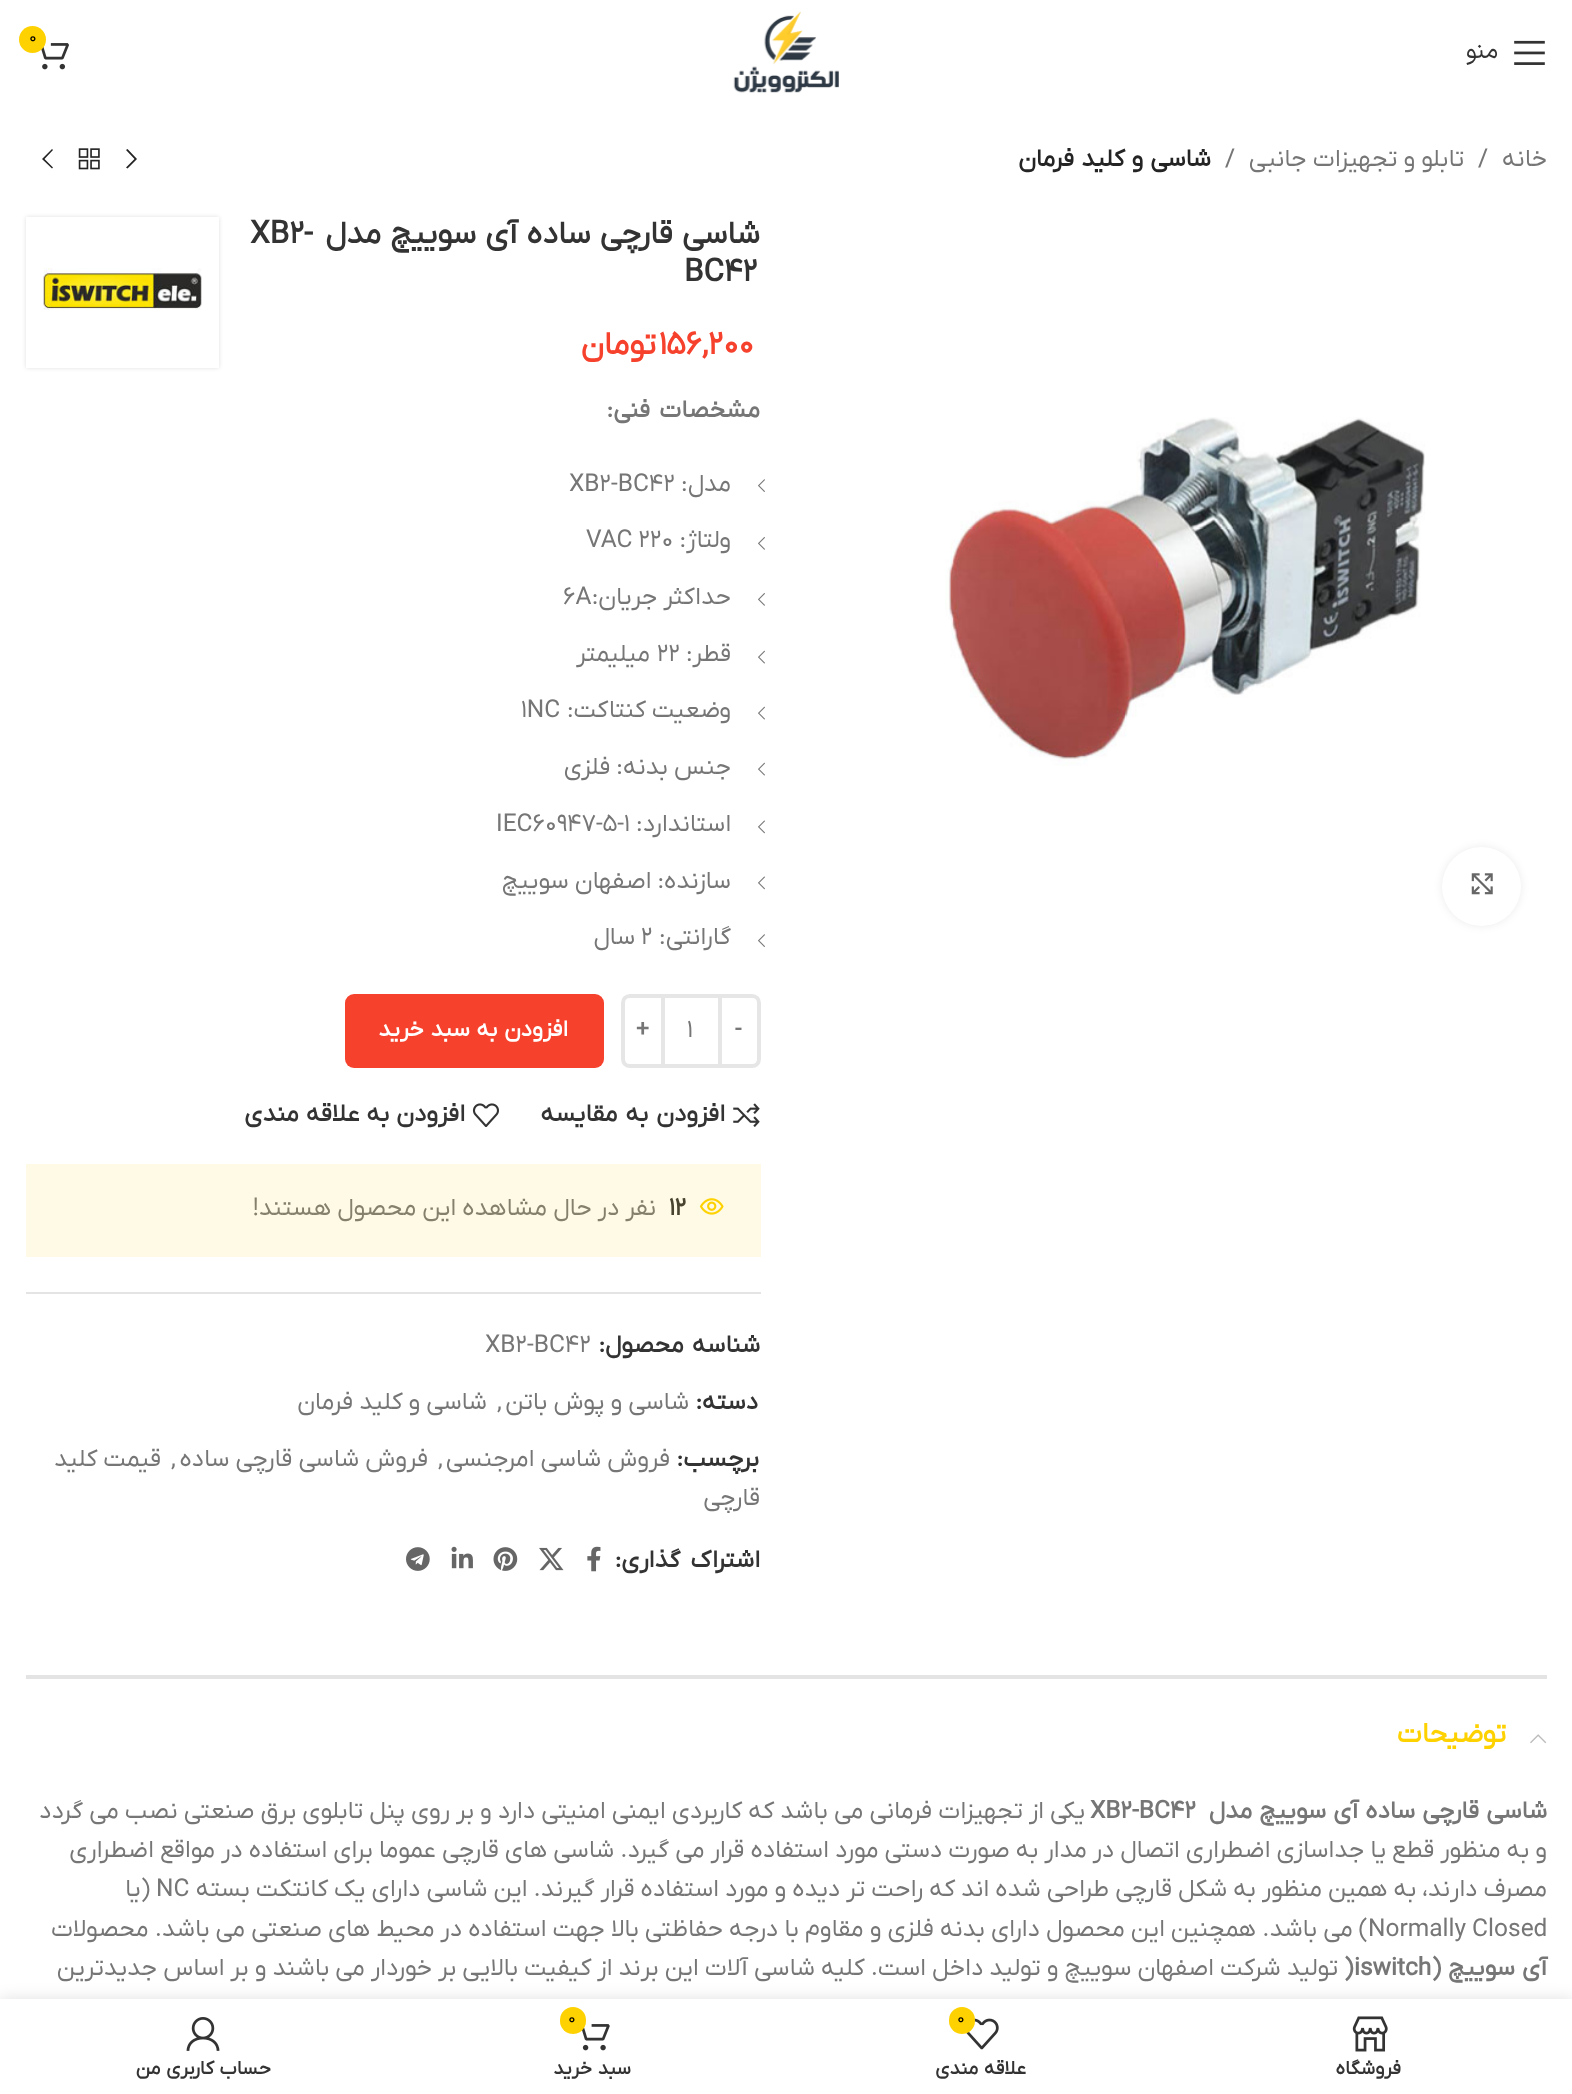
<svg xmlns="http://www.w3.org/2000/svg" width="1572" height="2094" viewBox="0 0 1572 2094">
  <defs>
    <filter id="blur1" x="-50%" y="-200%" width="200%" height="500%"><feGaussianBlur stdDeviation="4.5"/></filter>
    <filter id="blur2" x="-50%" y="-200%" width="200%" height="500%"><feGaussianBlur stdDeviation="2"/></filter>
    <filter id="blur3" x="-50%" y="-200%" width="200%" height="500%"><feGaussianBlur stdDeviation="8"/></filter>
  </defs>
  <rect width="100%" height="100%" fill="#ffffff"/>
  <rect x="26" y="1164" width="735" height="93" fill="#fffae6"/>
  <image x="733" y="11" width="106" height="82" href="img1.png"/>
  <image x="41" y="43" width="28" height="27" href="img2.png"/>
  <circle cx="32.5" cy="39.5" r="13.5" fill="#fed100"/>
  <text x="29" y="42" font-family="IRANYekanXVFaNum" font-size="16" fill="#000000">0</text>
  <image x="1514" y="40" width="31" height="25" href="img3.png"/>
  <text x="1498" y="58" font-family="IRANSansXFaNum" font-size="24.5" direction="rtl" fill="#333333">منو</text>
  <text x="1547" y="166" font-family="IRANYekanXVFaNum" font-size="24.5" direction="rtl" fill="#767676">خانه</text>
  <text x="1478" y="166" font-family="IRANYekanXVFaNum" font-size="24.5" fill="#767676">/</text>
  <text x="1464" y="166" font-family="IRANYekanXVFaNum" font-size="24.5" direction="rtl" fill="#767676">تابلو و تجهیزات جانبی</text>
  <text x="1225" y="166" font-family="IRANYekanXVFaNum" font-size="24.5" fill="#767676">/</text>
  <text x="1211" y="166" word-spacing="1" font-family="IRANYekanXVFaNum" font-size="24.5" font-weight="bold" direction="rtl" fill="#242424">شاسی و کلید فرمان</text>
  <path d="M126 150L134.5 159L126 167.5L127.5 168.5L137 159L127.5 149Z" fill="#242424"/>
  <image x="78" y="148" width="22" height="22" href="img4.png"/>
  <path d="M53 150L52 149L42 159L52 168.5L53 167.5L44.5 159Z" fill="#242424"/>
  <image x="945" y="417" width="480" height="349" href="img5.png"/>
  <rect x="1442" y="847" width="79" height="79" rx="39.5" fill="#000000" fill-opacity="0.08" filter="url(#blur1)"/>
  <circle cx="1481.5" cy="886.5" r="39.5" fill="#ffffff"/>
  <image x="1471" y="873" width="22" height="22" href="img6.png"/>
  <text x="760" y="243" word-spacing="1.25" font-family="IRANYekanXVFaNum" font-size="31.5" font-weight="bold" direction="rtl" fill="#333333">شاسی قارچی ساده آی سوییچ مدل</text>
  <text x="250" y="243" font-family="IRANYekanXVFaNum" font-size="31.5" font-weight="bold" fill="#333333">XB2-</text>
  <text x="684" y="281" font-family="IRANYekanXVFaNum" font-size="31.5" font-weight="bold" fill="#333333">BC42</text>
  <rect x="26" y="217" width="193" height="151" fill="#000000" fill-opacity="0.12" filter="url(#blur2)"/>
  <rect x="26" y="217" width="193" height="151" fill="#ffffff"/>
  <image x="43" y="268" width="159" height="42" href="img7.png"/>
  <text x="659" y="354" font-family="IRANYekanXVFaNum" font-size="32" font-weight="bold" fill="#f6412d">156,200</text>
  <text x="656" y="354" font-family="IRANYekanXVFaNum" font-size="32" font-weight="bold" direction="rtl" fill="#f6412d">تومان</text>
  <text x="760" y="417" word-spacing="3" font-family="IRANYekanXVFaNum" font-size="24.5" font-weight="bold" direction="rtl" fill="#767676">مشخصات فنی:</text>
  <image x="758" y="479" width="7" height="13" href="img8.png"/>
  <text x="731" y="491" font-family="IRANYekanXVFaNum" font-size="24.5" direction="rtl" fill="#767676">مدل:</text>
  <text x="569" y="491" font-family="IRANYekanXVFaNum" font-size="24.5" fill="#767676">XB2-BC42</text>
  <image x="758" y="537" width="7" height="13" href="img9.png"/>
  <text x="731" y="547" font-family="IRANYekanXVFaNum" font-size="24.5" direction="rtl" fill="#767676">ولتاژ:</text>
  <text x="586" y="547" font-family="IRANYekanXVFaNum" font-size="24.5" fill="#767676">VAC 220</text>
  <image x="758" y="593" width="7" height="13" href="img9.png"/>
  <text x="731" y="604" font-family="IRANYekanXVFaNum" font-size="24.5" direction="rtl" fill="#767676">حداکثر جریان:</text>
  <text x="563" y="604" font-family="IRANYekanXVFaNum" font-size="24.5" fill="#767676">6A</text>
  <image x="758" y="650" width="7" height="14" href="img10.png"/>
  <text x="731" y="661" font-family="IRANYekanXVFaNum" font-size="24.5" direction="rtl" fill="#767676">قطر:</text>
  <text x="657" y="661" font-family="IRANYekanXVFaNum" font-size="24.5" fill="#767676">22</text>
  <text x="650" y="661" font-family="IRANYekanXVFaNum" font-size="24.5" direction="rtl" fill="#767676">میلیمتر</text>
  <image x="758" y="706" width="7" height="14" href="img10.png"/>
  <text x="731" y="717" font-family="IRANYekanXVFaNum" font-size="24.5" direction="rtl" fill="#767676">وضعیت کنتاکت:</text>
  <text x="521" y="717" font-family="IRANYekanXVFaNum" font-size="24.5" fill="#767676">1NC</text>
  <image x="758" y="762" width="7" height="14" href="img10.png"/>
  <text x="731" y="774" font-family="IRANYekanXVFaNum" font-size="24.5" direction="rtl" fill="#767676">جنس بدنه: فلزی</text>
  <image x="758" y="820" width="7" height="14" href="img11.png"/>
  <text x="731" y="831" font-family="IRANYekanXVFaNum" font-size="24.5" direction="rtl" fill="#767676">استاندارد:</text>
  <text x="496" y="831" font-family="IRANYekanXVFaNum" font-size="24.5" fill="#767676">IEC60947-5-1</text>
  <image x="758" y="876" width="7" height="14" href="img11.png"/>
  <text x="731" y="888" font-family="IRANYekanXVFaNum" font-size="24.5" direction="rtl" fill="#767676">سازنده: اصفهان سوییچ</text>
  <image x="758" y="934" width="7" height="13" href="img8.png"/>
  <text x="731" y="944" font-family="IRANYekanXVFaNum" font-size="24.5" direction="rtl" fill="#767676">گارانتی:</text>
  <text x="641" y="944" font-family="IRANYekanXVFaNum" font-size="24.5" fill="#767676">2</text>
  <text x="635" y="944" font-family="IRANYekanXVFaNum" font-size="24.5" direction="rtl" fill="#767676">سال</text>
  <path d="M720 996H752C756 996 759 999 759 1003V1059C759 1063 756 1066 752 1066H720Z" fill="none" stroke="#e6e6e6" stroke-width="4"/>
  <text x="735" y="1036" font-family="IRANYekanXVFaNum" font-size="22.75" font-weight="bold" fill="#767676">-</text>
  <rect x="665" y="994" width="53" height="4" fill="#e6e6e6"/>
  <rect x="665" y="1064" width="53" height="4" fill="#e6e6e6"/>
  <text x="687" y="1037" font-family="IRANYekanXVFaNum" font-size="24.5" fill="#767676">1</text>
  <path d="M630 996H663V1066H630C626 1066 623 1063 623 1059V1003C623 999 626 996 630 996Z" fill="none" stroke="#e6e6e6" stroke-width="4"/>
  <text x="636" y="1036" font-family="IRANYekanXVFaNum" font-size="22.75" font-weight="bold" fill="#767676">+</text>
  <rect x="345" y="994" width="259" height="74" rx="9" fill="#f6412d"/>
  <text x="568" y="1036" word-spacing="1" font-family="IRANYekanXVFaNum" font-size="22.75" font-weight="bold" direction="rtl" fill="#ffffff">افزودن به سبد خرید</text>
  <image x="733" y="1103" width="27" height="24" href="img12.png"/>
  <text x="725" y="1121" word-spacing="2" font-family="IRANYekanXVFaNum" font-size="24.5" font-weight="bold" direction="rtl" fill="#333333">افزودن به مقایسه</text>
  <image x="472" y="1103" width="27" height="24" href="img13.png"/>
  <text x="465" y="1121" word-spacing="1" font-family="IRANYekanXVFaNum" font-size="24.5" font-weight="bold" direction="rtl" fill="#333333">افزودن به علاقه مندی</text>
  <image x="699" y="1198" width="25" height="17" href="img14.png"/>
  <text x="669" y="1215" font-family="IRANYekanXVFaNum" font-size="24.5" font-weight="bold" fill="#47432e">12</text>
  <text x="656" y="1215" font-family="IRANYekanXVFaNum" font-size="24.5" direction="rtl" fill="#85806b">نفر در حال مشاهده این محصول هستند!</text>
  <rect x="26" y="1292" width="735" height="2" fill="#e4e4e4"/>
  <text x="760" y="1352" word-spacing="2" font-family="IRANYekanXVFaNum" font-size="24.5" font-weight="bold" direction="rtl" fill="#333333">شناسه محصول:</text>
  <text x="485" y="1352" font-family="IRANYekanXVFaNum" font-size="24.5" fill="#767676">XB2-BC42</text>
  <text x="758" y="1409" font-family="IRANYekanXVFaNum" font-size="24.5" font-weight="bold" direction="rtl" fill="#333333">دسته:</text>
  <text x="689" y="1409" font-family="IRANYekanXVFaNum" font-size="24.5" direction="rtl" fill="#767676">شاسی و پوش باتن</text>
  <text x="497" y="1409" font-family="IRANYekanXVFaNum" font-size="24.5" fill="#767676">,</text>
  <text x="487" y="1409" font-family="IRANYekanXVFaNum" font-size="24.5" direction="rtl" fill="#767676">شاسی و کلید فرمان</text>
  <text x="759" y="1466" font-family="IRANYekanXVFaNum" font-size="24.5" font-weight="bold" direction="rtl" fill="#333333">برچسب:</text>
  <text x="670" y="1466" font-family="IRANYekanXVFaNum" font-size="24.5" direction="rtl" fill="#767676">فروش شاسی امرجنسی</text>
  <text x="438" y="1466" font-family="IRANYekanXVFaNum" font-size="24.5" fill="#767676">,</text>
  <text x="428" y="1466" font-family="IRANYekanXVFaNum" font-size="24.5" direction="rtl" fill="#767676">فروش شاسی قارچی ساده</text>
  <text x="171" y="1466" font-family="IRANYekanXVFaNum" font-size="24.5" fill="#767676">,</text>
  <text x="161" y="1466" font-family="IRANYekanXVFaNum" font-size="24.5" direction="rtl" fill="#767676">قیمت کلید</text>
  <text x="760" y="1505" font-family="IRANYekanXVFaNum" font-size="24.5" direction="rtl" fill="#767676">قارچی</text>
  <text x="760" y="1567" word-spacing="4" font-family="IRANYekanXVFaNum" font-size="24.5" font-weight="bold" direction="rtl" fill="#333333">اشتراک گذاری:</text>
  <image x="587" y="1546" width="14" height="26" href="img15.png"/>
  <image x="539" y="1547" width="25" height="24" href="img16.png"/>
  <image x="493" y="1547" width="25" height="24" href="img17.png"/>
  <image x="451" y="1546" width="22" height="23" href="img18.png"/>
  <image x="406" y="1547" width="24" height="24" href="img19.png"/>
  <rect x="26" y="1675" width="1521" height="4" fill="#e4e4e4"/>
  <image x="1530" y="1734" width="17" height="10" href="img20.png"/>
  <text x="1506" y="1742" font-family="IRANYekanXVFaNum" font-size="28" font-weight="bold" direction="rtl" fill="#fed100">توضیحات</text>
  <text x="1547" y="1818" word-spacing="1" font-family="IRANYekanXVFaNum" font-size="24.5" font-weight="bold" direction="rtl" fill="#767676">شاسی قارچی ساده آی سوییچ مدل</text>
  <text x="1090" y="1818" font-family="IRANYekanXVFaNum" font-size="24.5" font-weight="bold" fill="#767676">XB2-BC42</text>
  <text x="1085" y="1818" font-family="IRANYekanXVFaNum" font-size="24.5" direction="rtl" fill="#767676">یکی از تجهیزات فرمانی می باشد که کاربرد‌ی ایمنی امنیتی دارد و بر روی پنل تابلوی برق صنعتی نصب می گردد</text>
  <text x="1547" y="1857" font-family="IRANYekanXVFaNum" font-size="24.5" direction="rtl" fill="#767676">و به منظور قطع یا جداسازی اضطراری اتصال در مدار به صورت دستی مورد استفاده قرار می گیرد. شاسی های قارچی عموما برای استفاده در مواقع اضطراری</text>
  <text x="1547" y="1896" font-family="IRANYekanXVFaNum" font-size="24.5" direction="rtl" fill="#767676">مصرف دارند،‌ به همین منظور به شکل قارچی طراحی شده اند که راحت تر دیده و مورد استفاده قرار گیرند. این شاسی دارای یک کانتکت بسته</text>
  <text x="156" y="1896" font-family="IRANYekanXVFaNum" font-size="24.5" fill="#767676">NC</text>
  <text x="150" y="1896" font-family="IRANYekanXVFaNum" font-size="24.5" direction="rtl" fill="#767676">(یا</text>
  <text x="1368" y="1936" font-family="IRANYekanXVFaNum" font-size="24.5" fill="#767676">Normally Closed</text>
  <text x="1368" y="1936" font-family="IRANYekanXVFaNum" font-size="24.5" direction="rtl" fill="#767676">) می باشد. همچنین این محصول دارای بدنه فلزی و مقاوم با درجه حفاظتی بالا جهت استفاده در محیط های صنعتی می باشد. محصولات</text>
  <text x="1547" y="1975" word-spacing="1" font-family="IRANYekanXVFaNum" font-size="24.5" font-weight="bold" direction="rtl" fill="#767676">آی سوییچ (</text>
  <text x="1354" y="1975" font-family="IRANYekanXVFaNum" font-size="24.5" font-weight="bold" fill="#767676">iswitch</text>
  <text x="1344" y="1975" font-family="IRANYekanXVFaNum" font-size="24.5" font-weight="bold" fill="#767676">)</text>
  <text x="1338" y="1975" font-family="IRANYekanXVFaNum" font-size="24.5" direction="rtl" fill="#767676">تولید شرکت اصفهان سوییچ و تولید داخل است. کلیه شاسی آلات این برند از کیفیت بالایی بر خوردار می باشند و بر اساس جدیدترین</text>
  <rect x="0" y="1999" width="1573" height="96" fill="#000000" fill-opacity="0.12" filter="url(#blur3)"/>
  <rect x="0" y="1999" width="1572" height="95" fill="#ffffff"/>
  <image x="1352" y="2016" width="36" height="36" href="img21.png"/>
  <text x="1401" y="2074" font-family="IRANYekanXVFaNum" font-size="19.25" font-weight="bold" direction="rtl" fill="#333333">فروشگاه</text>
  <image x="966" y="2018" width="33" height="32" href="img22.png"/>
  <rect x="949" y="2007" width="26" height="27" rx="13" fill="#fed100"/>
  <text x="957" y="2023" font-family="IRANYekanXVFaNum" font-size="16" fill="#000000">0</text>
  <text x="1026" y="2074" word-spacing="1" font-family="IRANYekanXVFaNum" font-size="19.25" font-weight="bold" direction="rtl" fill="#333333">علاقه مندی</text>
  <image x="582" y="2024" width="28" height="27" href="img23.png"/>
  <rect x="560" y="2007" width="26" height="27" rx="13" fill="#fed100"/>
  <text x="568" y="2023" font-family="IRANYekanXVFaNum" font-size="16" fill="#000000">0</text>
  <text x="631" y="2074" word-spacing="1" font-family="IRANYekanXVFaNum" font-size="19.25" font-weight="bold" direction="rtl" fill="#333333">سبد خرید</text>
  <image x="186" y="2017" width="34" height="34" href="img24.png"/>
  <text x="271" y="2074" word-spacing="1" font-family="IRANYekanXVFaNum" font-size="19.25" font-weight="bold" direction="rtl" fill="#333333">حساب کاربری من</text>
</svg>
